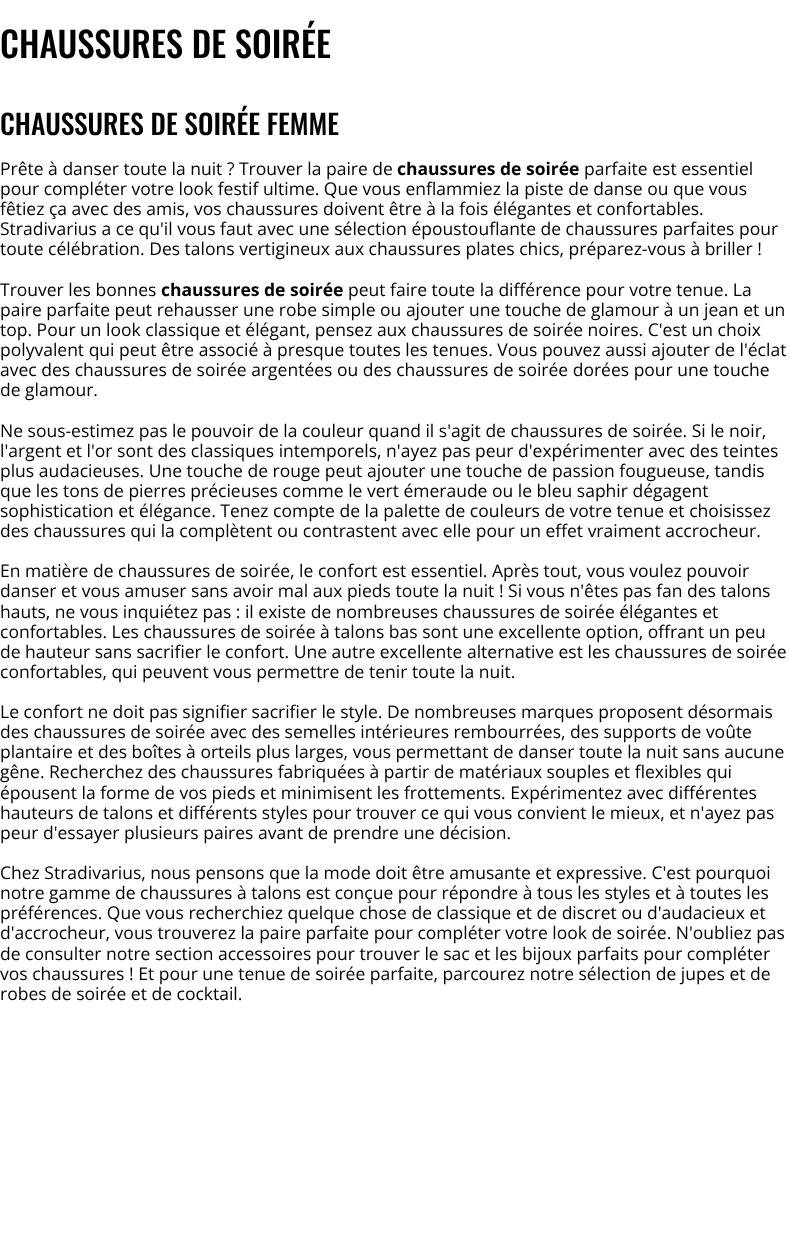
<svg xmlns="http://www.w3.org/2000/svg" width="790" height="1254" viewBox="0 0 790 1254">
  <rect width="100%" height="100%" fill="#ffffff"/>
  <text x="0" y="58" font-family="Oswald" font-size="35" font-weight="500" fill="#000000">CHAUSSURES DE SOIRÉE</text>
  <text x="0" y="135" font-family="Oswald" font-size="27.5" font-weight="500" fill="#000000">CHAUSSURES DE SOIRÉE FEMME</text>
  <text x="0" y="175" font-family="Open Sans" font-size="17.5" fill="#000000">Prête à danser toute la nuit ? Trouver la paire de</text>
  <text x="397" y="175" font-family="Open Sans" font-size="17.5" font-weight="bold" fill="#000000">chaussures de soirée</text>
  <text x="584" y="175" font-family="Open Sans" font-size="17.5" fill="#000000">parfaite est essentiel</text>
  <text x="0" y="195" font-family="Open Sans" font-size="17.5" fill="#000000">pour compléter votre look festif ultime. Que vous enflammiez la piste de danse ou que vous</text>
  <text x="0" y="215" font-family="Open Sans" font-size="17.5" fill="#000000">fêtiez ça avec des amis, vos chaussures doivent être à la fois élégantes et confortables.</text>
  <text x="0" y="235" font-family="Open Sans" font-size="17.5" fill="#000000">Stradivarius a ce qu'il vous faut avec une sélection époustouflante de chaussures parfaites pour</text>
  <text x="0" y="255" font-family="Open Sans" font-size="17.5" fill="#000000">toute célébration. Des talons vertigineux aux chaussures plates chics, préparez-vous à briller !</text>
  <text x="0" y="296" font-family="Open Sans" font-size="17.5" fill="#000000">Trouver les bonnes</text>
  <text x="161" y="296" font-family="Open Sans" font-size="17.5" font-weight="bold" fill="#000000">chaussures de soirée</text>
  <text x="348" y="296" font-family="Open Sans" font-size="17.5" fill="#000000">peut faire toute la différence pour votre tenue. La</text>
  <text x="0" y="316" font-family="Open Sans" font-size="17.5" fill="#000000">paire parfaite peut rehausser une robe simple ou ajouter une touche de glamour à un jean et un</text>
  <text x="0" y="336" font-family="Open Sans" font-size="17.5" fill="#000000">top. Pour un look classique et élégant, pensez aux chaussures de soirée noires. C'est un choix</text>
  <text x="0" y="356" font-family="Open Sans" font-size="17.5" fill="#000000">polyvalent qui peut être associé à presque toutes les tenues. Vous pouvez aussi ajouter de l'éclat</text>
  <text x="0" y="376" font-family="Open Sans" font-size="17.5" fill="#000000">avec des chaussures de soirée argentées ou des chaussures de soirée dorées pour une touche</text>
  <text x="0" y="396" font-family="Open Sans" font-size="17.5" fill="#000000">de glamour.</text>
  <text x="0" y="437" font-family="Open Sans" font-size="17.5" fill="#000000">Ne sous-estimez pas le pouvoir de la couleur quand il s'agit de chaussures de soirée. Si le noir,</text>
  <text x="0" y="457" font-family="Open Sans" font-size="17.5" fill="#000000">l'argent et l'or sont des classiques intemporels, n'ayez pas peur d'expérimenter avec des teintes</text>
  <text x="0" y="477" font-family="Open Sans" font-size="17.5" fill="#000000">plus audacieuses. Une touche de rouge peut ajouter une touche de passion fougueuse, tandis</text>
  <text x="0" y="497" font-family="Open Sans" font-size="17.5" fill="#000000">que les tons de pierres précieuses comme le vert émeraude ou le bleu saphir dégagent</text>
  <text x="0" y="517" font-family="Open Sans" font-size="17.5" fill="#000000">sophistication et élégance. Tenez compte de la palette de couleurs de votre tenue et choisissez</text>
  <text x="0" y="537" font-family="Open Sans" font-size="17.5" fill="#000000">des chaussures qui la complètent ou contrastent avec elle pour un effet vraiment accrocheur.</text>
  <text x="0" y="577" font-family="Open Sans" font-size="17.5" fill="#000000">En matière de chaussures de soirée, le confort est essentiel. Après tout, vous voulez pouvoir</text>
  <text x="0" y="597" font-family="Open Sans" font-size="17.5" fill="#000000">danser et vous amuser sans avoir mal aux pieds toute la nuit ! Si vous n'êtes pas fan des talons</text>
  <text x="0" y="618" font-family="Open Sans" font-size="17.5" fill="#000000">hauts, ne vous inquiétez pas : il existe de nombreuses chaussures de soirée élégantes et</text>
  <text x="0" y="638" font-family="Open Sans" font-size="17.5" fill="#000000">confortables. Les chaussures de soirée à talons bas sont une excellente option, offrant un peu</text>
  <text x="0" y="658" font-family="Open Sans" font-size="17.5" fill="#000000">de hauteur sans sacrifier le confort. Une autre excellente alternative est les chaussures de soirée</text>
  <text x="0" y="678" font-family="Open Sans" font-size="17.5" fill="#000000">confortables, qui peuvent vous permettre de tenir toute la nuit.</text>
  <text x="0" y="718" font-family="Open Sans" font-size="17.5" fill="#000000">Le confort ne doit pas signifier sacrifier le style. De nombreuses marques proposent désormais</text>
  <text x="0" y="738" font-family="Open Sans" font-size="17.5" fill="#000000">des chaussures de soirée avec des semelles intérieures rembourrées, des supports de voûte</text>
  <text x="0" y="758" font-family="Open Sans" font-size="17.5" fill="#000000">plantaire et des boîtes à orteils plus larges, vous permettant de danser toute la nuit sans aucune</text>
  <text x="0" y="778" font-family="Open Sans" font-size="17.5" fill="#000000">gêne. Recherchez des chaussures fabriquées à partir de matériaux souples et flexibles qui</text>
  <text x="0" y="799" font-family="Open Sans" font-size="17.5" fill="#000000">épousent la forme de vos pieds et minimisent les frottements. Expérimentez avec différentes</text>
  <text x="0" y="819" font-family="Open Sans" font-size="17.5" fill="#000000">hauteurs de talons et différents styles pour trouver ce qui vous convient le mieux, et n'ayez pas</text>
  <text x="0" y="839" font-family="Open Sans" font-size="17.5" fill="#000000">peur d'essayer plusieurs paires avant de prendre une décision.</text>
  <text x="0" y="879" font-family="Open Sans" font-size="17.5" fill="#000000">Chez Stradivarius, nous pensons que la mode doit être amusante et expressive. C'est pourquoi</text>
  <text x="0" y="899" font-family="Open Sans" font-size="17.5" fill="#000000">notre gamme de chaussures à talons est conçue pour répondre à tous les styles et à toutes les</text>
  <text x="0" y="919" font-family="Open Sans" font-size="17.5" fill="#000000">préférences. Que vous recherchiez quelque chose de classique et de discret ou d'audacieux et</text>
  <text x="0" y="939" font-family="Open Sans" font-size="17.5" fill="#000000">d'accrocheur, vous trouverez la paire parfaite pour compléter votre look de soirée. N'oubliez pas</text>
  <text x="0" y="960" font-family="Open Sans" font-size="17.5" fill="#000000">de consulter notre section accessoires pour trouver le sac et les bijoux parfaits pour compléter</text>
  <text x="0" y="980" font-family="Open Sans" font-size="17.5" fill="#000000">vos chaussures ! Et pour une tenue de soirée parfaite, parcourez notre sélection de jupes et de</text>
  <text x="0" y="1000" font-family="Open Sans" font-size="17.5" fill="#000000">robes de soirée et de cocktail.</text>
</svg>
